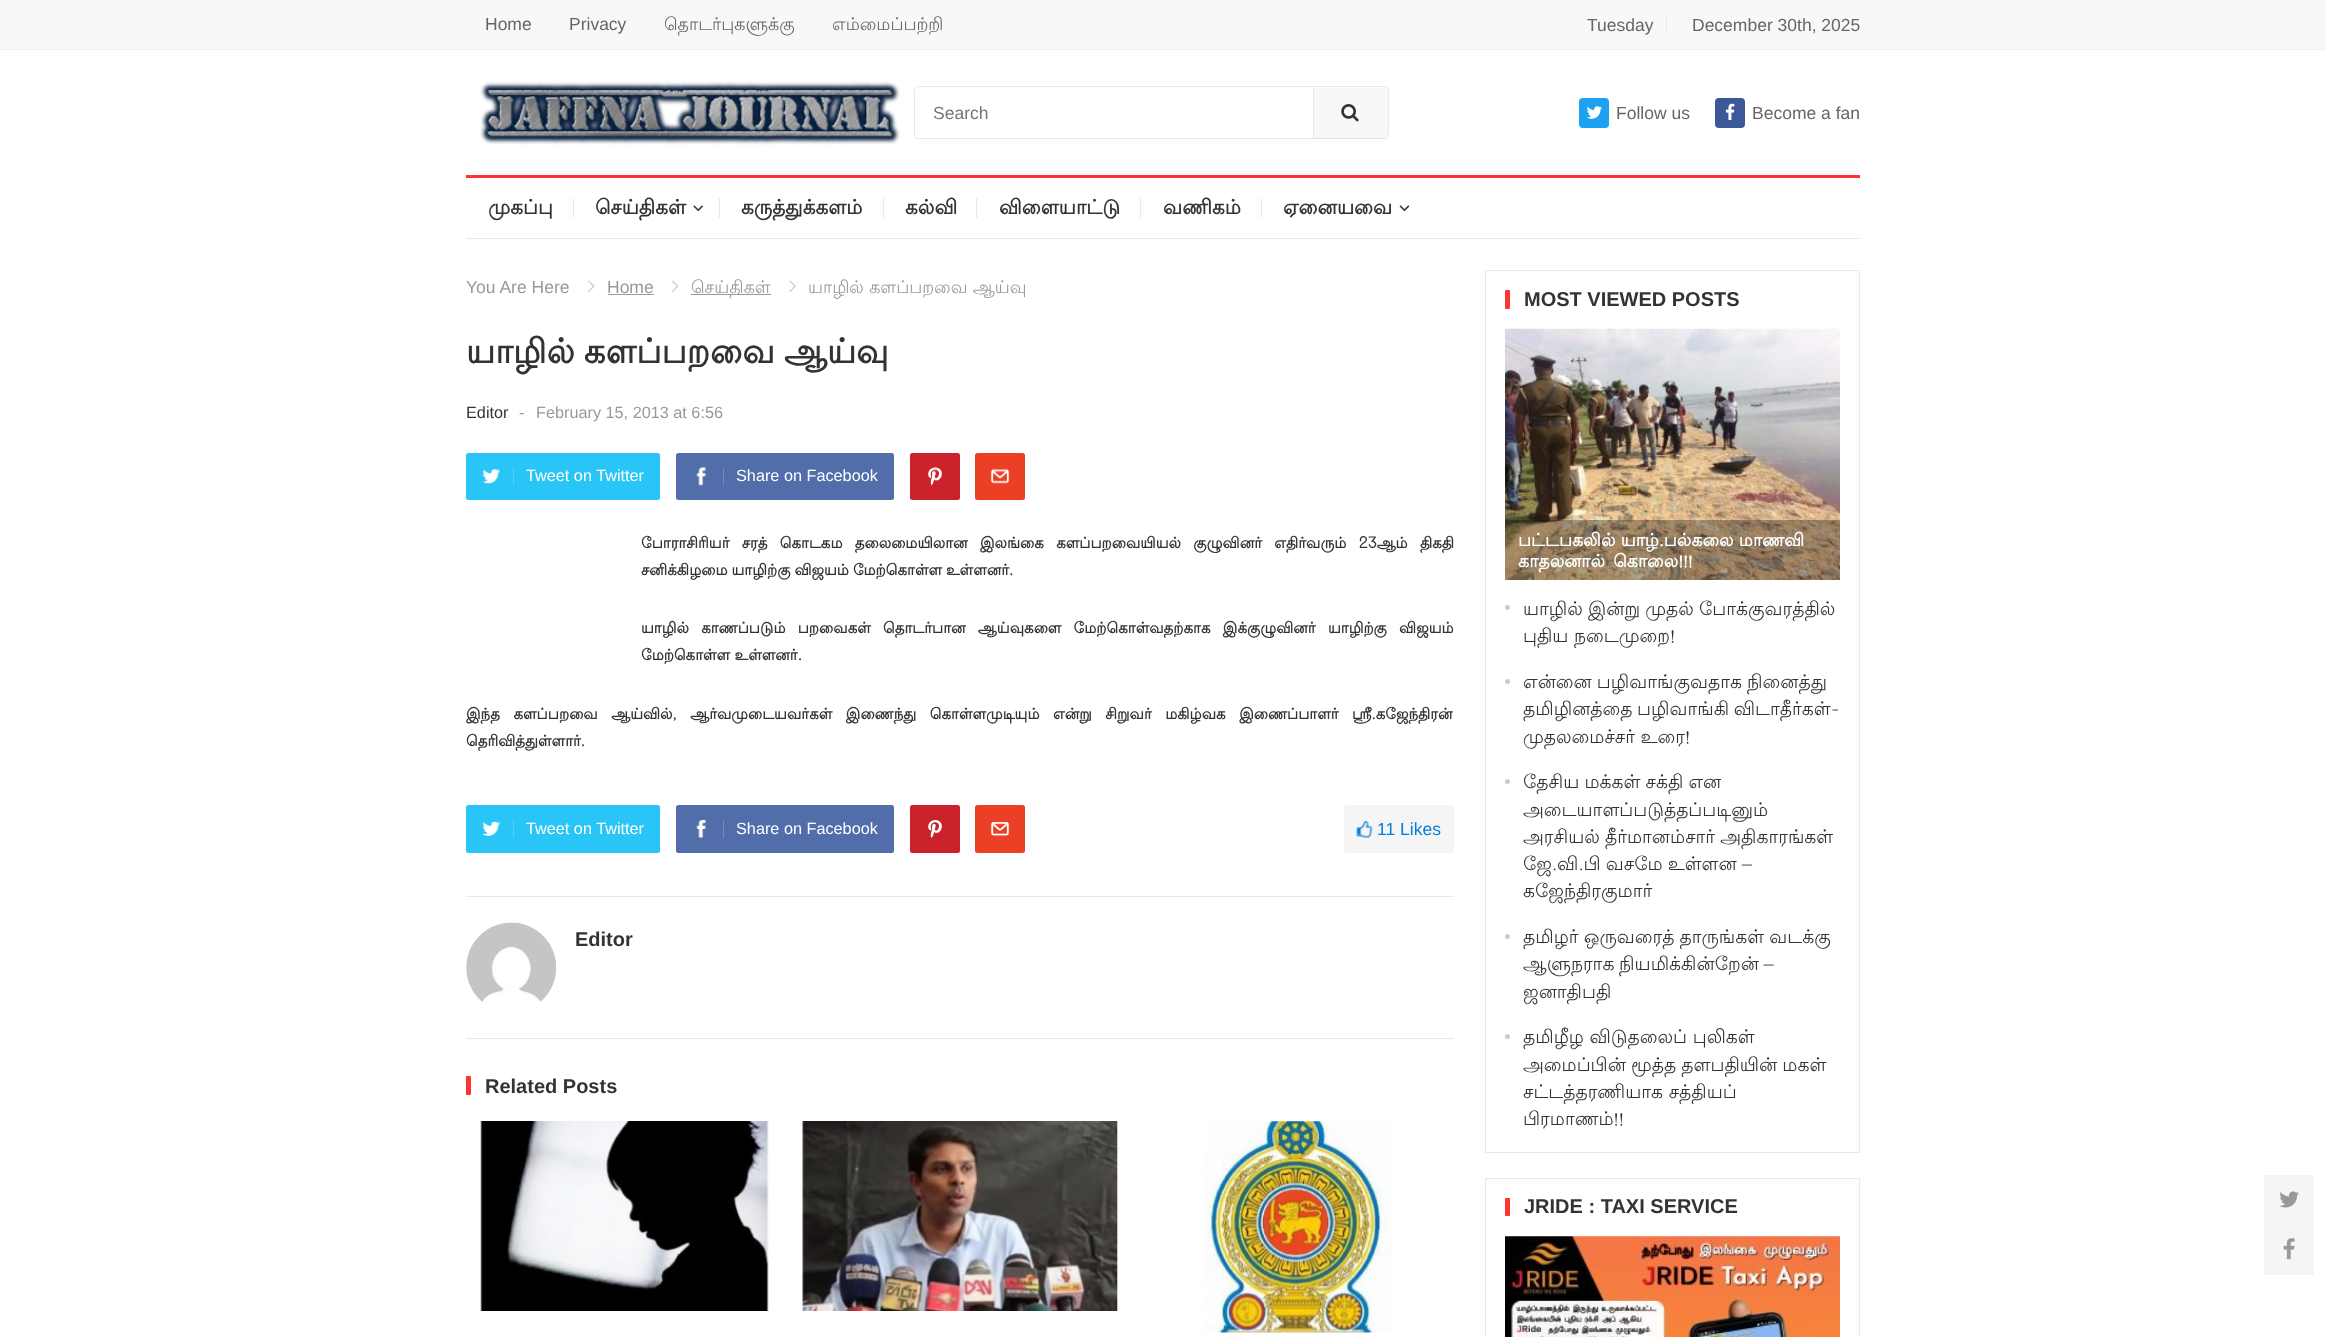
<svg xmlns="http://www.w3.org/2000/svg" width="2326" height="1337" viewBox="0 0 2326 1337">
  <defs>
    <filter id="blur1" x="-50%" y="-200%" width="200%" height="500%"><feGaussianBlur stdDeviation="0.5"/></filter>
  </defs>
  <rect width="100%" height="100%" fill="#ffffff"/>
  <rect x="0" y="0" width="2326" height="49" fill="#f8f8f8"/>
  <rect x="0" y="49" width="2326" height="1" fill="#f0f0f0"/>
  <text x="485" y="30" font-family="Liberation Sans" font-size="17.5" fill="#666666">Home</text>
  <text x="569" y="30" font-family="Liberation Sans" font-size="17.5" fill="#666666">Privacy</text>
  <text x="664" y="30" font-family="Lohit Tamil" font-size="17.5" fill="#666666">தொடர்புகளுக்கு</text>
  <text x="832" y="30" font-family="Lohit Tamil" font-size="17.5" fill="#666666">எம்மைப்பற்றி</text>
  <rect x="1666" y="16" width="1" height="18" fill="#e9e9e9"/>
  <text x="1587" y="31" font-family="Liberation Sans" font-size="17.5" fill="#666666">Tuesday</text>
  <text x="1692" y="31" font-family="Liberation Sans" font-size="17.5" fill="#666666">December 30th, 2025</text>
  <image x="480" y="81" width="420" height="64" href="img1.png"/>
  <rect x="914.5" y="86.5" width="474" height="52" rx="3.5" fill="none" stroke="#e9e9e9"/>
  <text x="933" y="119" font-family="Liberation Sans" font-size="17.5" fill="#757575">Search</text>
  <path d="M1313 138V139H1384C1386 139 1388 137 1388 135V93L1387 91L1388 120C1388 139 1391 138 1372 138Z" fill="#000000" fill-opacity="0.03"/>
  <path d="M1313 88H1384C1386 88 1388 90 1388 92V134C1388 136 1386 138 1384 138H1313Z" fill="#f8f8f8"/>
  <rect x="1313" y="88" width="1" height="50" fill="#e9e9e9"/>
  <image x="1341" y="104" width="18" height="18" href="img2.png"/>
  <rect x="1579" y="98" width="30" height="30" rx="4" fill="#1da1f2"/>
  <image x="1586" y="106" width="16" height="13" href="img3.png"/>
  <text x="1616" y="119" font-family="Liberation Sans" font-size="17.5" fill="#666666">Follow us</text>
  <rect x="1715" y="98" width="30" height="30" rx="4" fill="#3b5998"/>
  <image x="1725" y="103" width="10" height="17" href="img4.png"/>
  <text x="1752" y="119" font-family="Liberation Sans" font-size="17.5" fill="#666666">Become a fan</text>
  <rect x="466" y="175" width="1394" height="3" fill="#ff3333"/>
  <rect x="466" y="238" width="1394" height="1" fill="#e9e9e9"/>
  <text x="488" y="214" font-family="Lohit Tamil" font-size="20" font-weight="bold" fill="#333333">முகப்பு</text>
  <rect x="573" y="198" width="1" height="20" fill="#e9e9e9"/>
  <text x="595" y="214" font-family="Lohit Tamil" font-size="20" font-weight="bold" fill="#333333">செய்திகள்</text>
  <image x="693" y="205" width="10" height="7" href="img5.png"/>
  <rect x="719" y="198" width="1" height="20" fill="#e9e9e9"/>
  <text x="741" y="214" font-family="Lohit Tamil" font-size="20" font-weight="bold" fill="#333333">கருத்துக்களம்</text>
  <rect x="883" y="198" width="1" height="20" fill="#e9e9e9"/>
  <text x="905" y="214" font-family="Lohit Tamil" font-size="20" font-weight="bold" fill="#333333">கல்வி</text>
  <rect x="976" y="198" width="1" height="20" fill="#e9e9e9"/>
  <text x="999" y="214" font-family="Lohit Tamil" font-size="20" font-weight="bold" fill="#333333">விளையாட்டு</text>
  <rect x="1140" y="198" width="1" height="20" fill="#e9e9e9"/>
  <text x="1163" y="214" font-family="Lohit Tamil" font-size="20" font-weight="bold" fill="#333333">வணிகம்</text>
  <rect x="1261" y="198" width="1" height="20" fill="#e9e9e9"/>
  <text x="1283" y="214" font-family="Lohit Tamil" font-size="20" font-weight="bold" fill="#333333">ஏனையவை</text>
  <image x="1399" y="205" width="11" height="7" href="img6.png"/>
  <text x="466" y="293" font-family="Liberation Sans" font-size="17.5" fill="#999999">You Are Here</text>
  <image x="588" y="280" width="7" height="12" href="img7.png"/>
  <text x="607" y="293" font-family="Liberation Sans" font-size="17.5" fill="#999999">Home</text>
  <rect x="608" y="294" width="46" height="1" fill="#999999"/>
  <image x="672" y="280" width="6" height="12" href="img8.png"/>
  <rect x="691" y="294" width="80" height="1" fill="#999999"/>
  <text x="691" y="293" font-family="Lohit Tamil" font-size="17.5" fill="#999999">செய்திகள்</text>
  <image x="789" y="280" width="7" height="12" href="img9.png"/>
  <text x="808" y="293" font-family="Lohit Tamil" font-size="17.5" fill="#999999">யாழில் களப்பறவை ஆய்வு</text>
  <text x="466" y="363" word-spacing="-1" font-family="Lohit Tamil" font-size="34" font-weight="bold" fill="#333333">யாழில் களப்பறவை ஆய்வு</text>
  <text x="466" y="418" font-family="Liberation Sans" font-size="16.25" fill="#333333">Editor</text>
  <text x="519" y="418" font-family="Liberation Sans" font-size="16.25" fill="#999999">-</text>
  <text x="536" y="418" font-family="Liberation Sans" font-size="16.25" fill="#999999">February 15, 2013 at 6:56</text>
  <rect x="466" y="453" width="194" height="47" rx="2.5" fill="#29c5f6"/>
  <image x="482" y="469" width="19" height="15" href="img10.png"/>
  <rect x="513" y="468" width="1" height="17" fill="#54d1f8"/>
  <text x="526" y="481" font-family="Liberation Sans" font-size="16.25" fill="#ffffff">Tweet on Twitter</text>
  <rect x="676" y="453" width="218" height="47" rx="2.5" fill="#516eab"/>
  <image x="696" y="467" width="10" height="19" href="img11.png"/>
  <rect x="723" y="468" width="1" height="17" fill="#748bbc"/>
  <text x="736" y="481" font-family="Liberation Sans" font-size="16.25" fill="#ffffff">Share on Facebook</text>
  <rect x="910" y="453" width="50" height="47" rx="2.5" fill="#ca212a"/>
  <image x="928" y="467" width="14" height="19" href="img12.png"/>
  <rect x="975" y="453" width="50" height="47" rx="2.5" fill="#eb4026"/>
  <image x="991" y="469" width="18" height="15" href="img13.png"/>
  <text x="641" y="548" word-spacing="7.75" font-family="Lohit Tamil" font-size="15" font-weight="bold" fill="#333333">போராசிரியர் சரத் கொடகம தலைமையிலான இலங்கை களப்பறவையியல் குழுவினர் எதிர்வரும் 23ஆம் திகதி</text>
  <text x="641" y="575" word-spacing="-0.5" font-family="Lohit Tamil" font-size="15" font-weight="bold" fill="#333333">சனிக்கிழமை யாழிற்கு விஜயம் மேற்கொள்ள உள்ளனர்.</text>
  <text x="641" y="633" word-spacing="7.75" font-family="Lohit Tamil" font-size="15" font-weight="bold" fill="#333333">யாழில் காணப்படும் பறவைகள் தொடர்பான ஆய்வுகளை மேற்கொள்வதற்காக இக்குழுவினர் யாழிற்கு விஜயம்</text>
  <text x="641" y="660" font-family="Lohit Tamil" font-size="15" font-weight="bold" fill="#333333">மேற்கொள்ள உள்ளனர்.</text>
  <text x="466" y="719" word-spacing="9" font-family="Lohit Tamil" font-size="15" font-weight="bold" fill="#333333">இந்த களப்பறவை ஆய்வில், ஆர்வமுடையவர்கள் இணைந்து கொள்ளமுடியும் என்று சிறுவர் மகிழ்வக இணைப்பாளர் ஸ்ரீ.கஜேந்திரன்</text>
  <text x="466" y="746" font-family="Lohit Tamil" font-size="15" font-weight="bold" fill="#333333">தெரிவித்துள்ளார்.</text>
  <rect x="466" y="805" width="194" height="48" rx="2.5" fill="#29c5f6"/>
  <image x="482" y="821" width="19" height="15" href="img14.png"/>
  <rect x="513" y="820" width="1" height="18" fill="#54d1f8"/>
  <text x="526" y="834" font-family="Liberation Sans" font-size="16.25" fill="#ffffff">Tweet on Twitter</text>
  <rect x="676" y="805" width="218" height="48" rx="2.5" fill="#516eab"/>
  <image x="696" y="820" width="10" height="18" href="img15.png"/>
  <rect x="723" y="820" width="1" height="18" fill="#748bbc"/>
  <text x="736" y="834" font-family="Liberation Sans" font-size="16.25" fill="#ffffff">Share on Facebook</text>
  <rect x="910" y="805" width="50" height="48" rx="2.5" fill="#ca212a"/>
  <image x="928" y="820" width="14" height="18" href="img16.png"/>
  <rect x="975" y="805" width="50" height="48" rx="2.5" fill="#eb4026"/>
  <image x="991" y="821" width="18" height="15" href="img17.png"/>
  <rect x="1344" y="805" width="110" height="48" rx="2.5" fill="#f5f5f5"/>
  <image x="1356" y="821" width="17" height="17" href="img18.png"/>
  <text x="1377" y="835" font-family="Liberation Sans" font-size="17.5" fill="#007fdb">11 Likes</text>
  <rect x="466" y="896" width="988" height="1" fill="#e9e9e9"/>
  <image x="466" y="922" width="90" height="80" href="img19.png"/>
  <text x="575" y="946" font-family="Liberation Sans" font-size="20" font-weight="bold" fill="#333333">Editor</text>
  <rect x="466" y="1038" width="988" height="1" fill="#e9e9e9"/>
  <rect x="466" y="1076" width="5" height="19" rx="1" fill="#ff3333"/>
  <text x="485" y="1093" font-family="Liberation Sans" font-size="20" font-weight="bold" fill="#333333">Related Posts</text>
  <image x="480" y="1121" width="290" height="190" href="img20.png"/>
  <image x="802" y="1121" width="316" height="190" href="img21.png"/>
  <image x="1204" y="1121" width="188" height="212" href="img22.png"/>
  <rect x="1485.5" y="270.5" width="374" height="882" fill="none" stroke="#e9e9e9"/>
  <rect x="1505" y="290" width="5" height="19" rx="1" fill="#ff3333"/>
  <text x="1524" y="306" font-family="Liberation Sans" font-size="20" font-weight="bold" fill="#333333">MOST VIEWED POSTS</text>
  <image x="1505" y="328" width="335" height="252" href="img23.png"/>
  <rect x="1505" y="520" width="335" height="60" fill="#000000" fill-opacity="0.3"/>
  <text x="1518" y="546" font-family="Lohit Tamil" font-size="17.5" font-weight="bold" fill="#ffffff">பட்டபகலில் யாழ்.பல்கலை மாணவி</text>
  <text x="1518" y="567" word-spacing="3" font-family="Lohit Tamil" font-size="17.5" font-weight="bold" fill="#ffffff">காதலனால் கொலை!!!</text>
  <circle cx="1507.5" cy="607.5" r="2.5" fill="#cccccc"/>
  <text x="1523" y="615" word-spacing="-0.5" font-family="Lohit Tamil" font-size="18.75" fill="#333333">யாழில் இன்று முதல் போக்குவரத்தில்</text>
  <text x="1523" y="642" font-family="Lohit Tamil" font-size="18.75" fill="#333333">புதிய நடைமுறை!</text>
  <circle cx="1507.5" cy="681.5" r="2.5" fill="#cccccc"/>
  <text x="1523" y="688" word-spacing="-0.5" font-family="Lohit Tamil" font-size="18.75" fill="#333333">என்னை பழிவாங்குவதாக நினைத்து</text>
  <text x="1523" y="715" word-spacing="-1" font-family="Lohit Tamil" font-size="18.75" fill="#333333">தமிழினத்தை பழிவாங்கி விடாதீர்கள்-</text>
  <text x="1523" y="743" font-family="Lohit Tamil" font-size="18.75" fill="#333333">முதலமைச்சர் உரை!</text>
  <circle cx="1507.5" cy="781.5" r="2.5" fill="#cccccc"/>
  <text x="1523" y="788" word-spacing="-0.5" font-family="Lohit Tamil" font-size="18.75" fill="#333333">தேசிய மக்கள் சக்தி என</text>
  <text x="1523" y="816" font-family="Lohit Tamil" font-size="18.75" fill="#333333">அடையாளப்படுத்தப்படினும்</text>
  <text x="1523" y="843" word-spacing="-0.5" font-family="Lohit Tamil" font-size="18.75" fill="#333333">அரசியல் தீர்மானம்சார் அதிகாரங்கள்</text>
  <text x="1523" y="870" word-spacing="-0.5" font-family="Lohit Tamil" font-size="18.75" fill="#333333">ஜே.வி.பி வசமே உள்ளன –</text>
  <text x="1523" y="897" font-family="Lohit Tamil" font-size="18.75" fill="#333333">கஜேந்திரகுமார்</text>
  <circle cx="1507.5" cy="936.5" r="2.5" fill="#cccccc"/>
  <text x="1523" y="943" word-spacing="-0.5" font-family="Lohit Tamil" font-size="18.75" fill="#333333">தமிழர் ஒருவரைத் தாருங்கள் வடக்கு</text>
  <text x="1523" y="970" word-spacing="-1" font-family="Lohit Tamil" font-size="18.75" fill="#333333">ஆளுநராக நியமிக்கின்றேன் –</text>
  <text x="1523" y="998" font-family="Lohit Tamil" font-size="18.75" fill="#333333">ஜனாதிபதி</text>
  <circle cx="1507.5" cy="1036.5" r="2.5" fill="#cccccc"/>
  <text x="1523" y="1043" font-family="Lohit Tamil" font-size="18.75" fill="#333333">தமிழீழ விடுதலைப் புலிகள்</text>
  <text x="1523" y="1071" word-spacing="-0.5" font-family="Lohit Tamil" font-size="18.75" fill="#333333">அமைப்பின் மூத்த தளபதியின் மகள்</text>
  <text x="1523" y="1098" font-family="Lohit Tamil" font-size="18.75" fill="#333333">சட்டத்தரணியாக சத்தியப்</text>
  <text x="1523" y="1125" font-family="Lohit Tamil" font-size="18.75" fill="#333333">பிரமாணம்!!</text>
  <rect x="1485.5" y="1178.5" width="374" height="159" fill="none" stroke="#e9e9e9"/>
  <rect x="1505" y="1198" width="5" height="18" rx="1" fill="#ff3333"/>
  <text x="1524" y="1213" font-family="Liberation Sans" font-size="20" font-weight="bold" fill="#333333">JRIDE : TAXI SERVICE</text>
  <image x="1505" y="1236" width="335" height="101" href="img24.png"/>
  <rect x="2264" y="1175" width="50" height="50" fill="#000000" fill-opacity="0.25" filter="url(#blur1)"/>
  <rect x="2264" y="1175" width="50" height="50" fill="#f5f5f5"/>
  <image x="2279" y="1191" width="20" height="17" href="img25.png"/>
  <rect x="2264" y="1225" width="50" height="50" fill="#000000" fill-opacity="0.25" filter="url(#blur1)"/>
  <rect x="2264" y="1225" width="50" height="50" fill="#f5f5f5"/>
  <image x="2283" y="1238" width="12" height="22" href="img26.png"/>
</svg>
